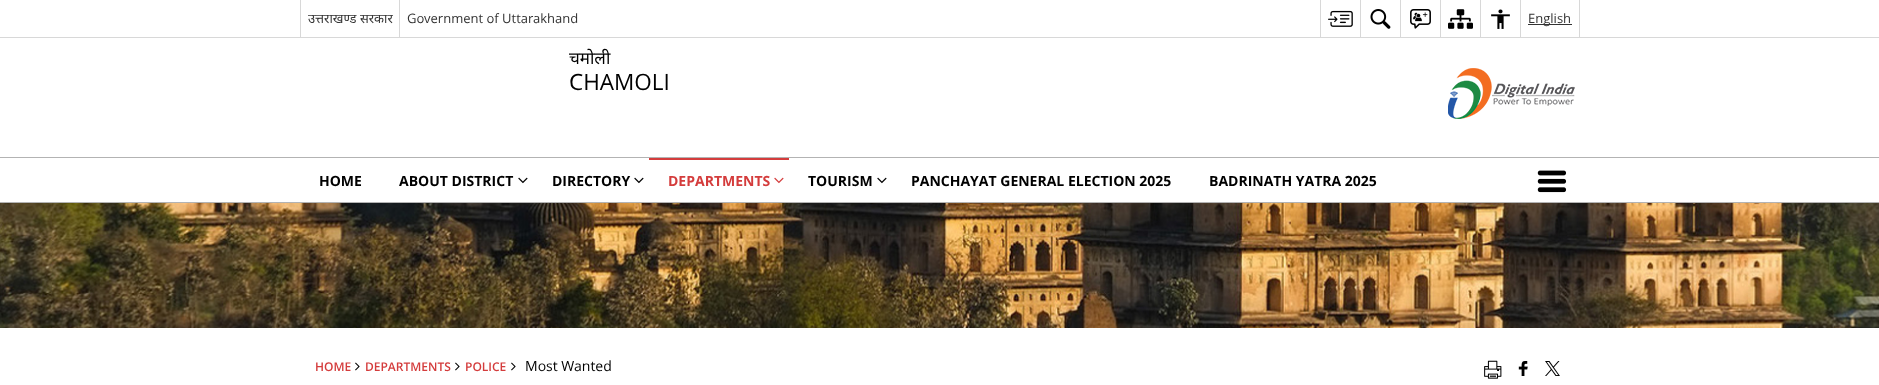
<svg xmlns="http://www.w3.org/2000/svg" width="1879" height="385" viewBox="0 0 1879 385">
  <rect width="100%" height="100%" fill="#ffffff"/>
  <rect x="0" y="37" width="1879" height="1" fill="#d8d8d8"/>
  <rect x="300" y="0" width="1" height="37" fill="#d8d8d8"/>
  <text x="308" y="23" font-family="Noto Sans" font-size="13" fill="#333333">उत्तराखण्ड सरकार</text>
  <rect x="399" y="0" width="1" height="37" fill="#d8d8d8"/>
  <text x="407" y="23" font-family="Open Sans" font-size="13" fill="#333333">Government of Uttarakhand</text>
  <rect x="1320" y="0" width="1" height="37" fill="#d8d8d8"/>
  <image x="1328" y="10" width="25" height="17" href="img1.png"/>
  <rect x="1360" y="0" width="1" height="37" fill="#d8d8d8"/>
  <image x="1370" y="9" width="21" height="20" href="img2.png"/>
  <rect x="1400" y="0" width="1" height="37" fill="#d8d8d8"/>
  <image x="1410" y="9" width="21" height="20" href="img3.png"/>
  <rect x="1440" y="0" width="1" height="37" fill="#d8d8d8"/>
  <image x="1448" y="9" width="25" height="20" href="img4.png"/>
  <rect x="1480" y="0" width="1" height="37" fill="#d8d8d8"/>
  <image x="1491" y="9" width="19" height="20" href="img5.png"/>
  <rect x="1579" y="0" width="1" height="37" fill="#d8d8d8"/>
  <rect x="1520" y="0" width="1" height="37" fill="#d8d8d8"/>
  <rect x="1528" y="24" width="44" height="1" fill="#333333"/>
  <text x="1528" y="23" font-family="Open Sans" font-size="13" fill="#333333">English</text>
  <text x="569" y="64" font-family="Noto Sans" font-size="17" fill="#000000">चमोली</text>
  <text x="569" y="90" font-family="Open Sans" font-size="22.5" fill="#000000">CHAMOLI</text>
  <image x="1448" y="68" width="127" height="51" href="img6.png"/>
  <rect x="0" y="157" width="1879" height="1" fill="#b3b3b3"/>
  <rect x="0" y="202" width="1879" height="1" fill="#b3b3b3"/>
  <text x="319" y="186" font-family="Open Sans" font-size="14" font-weight="bold" fill="#000000">HOME</text>
  <text x="399" y="186" font-family="Open Sans" font-size="14" font-weight="bold" fill="#000000">ABOUT DISTRICT</text>
  <image x="518" y="177" width="10" height="7" href="img7.png"/>
  <text x="552" y="186" font-family="Open Sans" font-size="14" font-weight="bold" fill="#000000">DIRECTORY</text>
  <image x="634" y="177" width="10" height="7" href="img7.png"/>
  <rect x="649" y="158" width="140" height="2" fill="#d43c3c"/>
  <text x="668" y="186" font-family="Open Sans" font-size="14" font-weight="bold" fill="#d43c3c">DEPARTMENTS</text>
  <image x="774" y="177" width="10" height="7" href="img8.png"/>
  <text x="808" y="186" font-family="Open Sans" font-size="14" font-weight="bold" fill="#000000">TOURISM</text>
  <image x="877" y="177" width="10" height="7" href="img7.png"/>
  <text x="911" y="186" font-family="Open Sans" font-size="14" font-weight="bold" fill="#000000">PANCHAYAT GENERAL ELECTION 2025</text>
  <text x="1209" y="186" font-family="Open Sans" font-size="14" font-weight="bold" fill="#000000">BADRINATH YATRA 2025</text>
  <image x="1537" y="170" width="30" height="23" href="img9.png"/>
  <image x="0" y="203" width="1879" height="125" href="img10.png"/>
  <text x="315" y="371" font-family="Open Sans" font-size="12" font-weight="600" fill="#d43c3c">HOME</text>
  <image x="355" y="362" width="5" height="9" href="img11.png"/>
  <text x="365" y="371" font-family="Open Sans" font-size="12" font-weight="600" fill="#d43c3c">DEPARTMENTS</text>
  <image x="455" y="362" width="5" height="9" href="img11.png"/>
  <text x="465" y="371" font-family="Open Sans" font-size="12" font-weight="600" fill="#d43c3c">POLICE</text>
  <image x="511" y="362" width="5" height="9" href="img11.png"/>
  <text x="525" y="371" font-family="Open Sans" font-size="14" fill="#000000">Most Wanted</text>
  <image x="1484" y="360" width="18" height="19" href="img12.png"/>
  <image x="1518" y="361" width="10" height="15" href="img13.png"/>
  <image x="1545" y="361" width="15" height="15" href="img14.png"/>
</svg>
